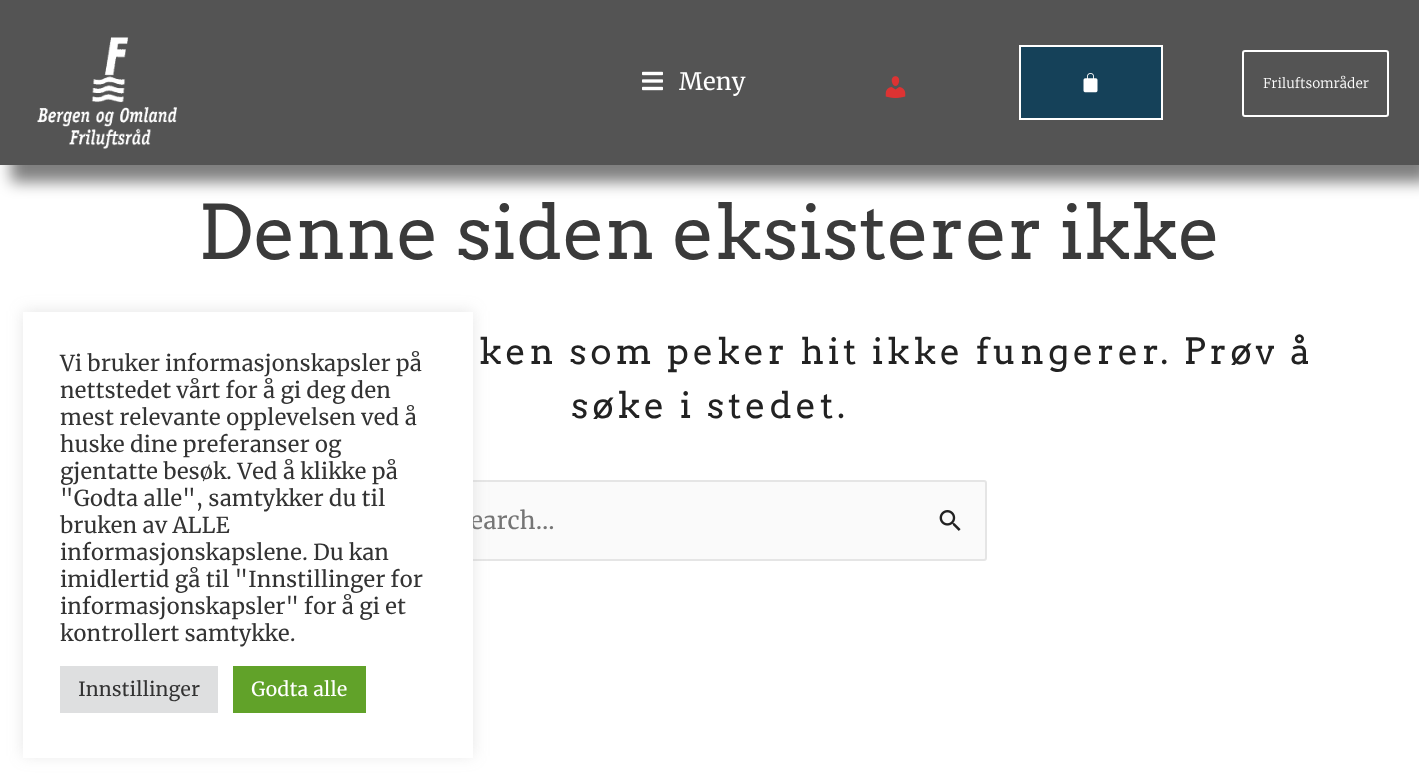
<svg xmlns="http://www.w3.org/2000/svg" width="1419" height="780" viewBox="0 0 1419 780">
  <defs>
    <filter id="blur1" x="-50%" y="-200%" width="200%" height="500%"><feGaussianBlur stdDeviation="7.5"/></filter>
  </defs>
  <rect width="100%" height="100%" fill="#ffffff"/>
  <rect x="11" y="17" width="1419" height="165" fill="#000000" fill-opacity="0.5" filter="url(#blur1)"/>
  <rect x="0" y="0" width="1419" height="165" fill="#545454"/>
  <image x="37" y="37" width="140" height="112" href="img1.png"/>
  <image x="642" y="71" width="21" height="20" href="img2.png"/>
  <text x="679" y="90" font-family="Merriweather" font-size="24" fill="#ffffff">Meny</text>
  <image x="885" y="76" width="21" height="22" href="img3.png"/>
  <rect x="1020" y="46" width="142" height="73" fill="#154159" stroke="#ffffff" stroke-width="2"/>
  <image x="1083" y="73" width="15" height="20" href="img4.png"/>
  <rect x="1243" y="51" width="145" height="65" rx="2" fill="none" stroke="#ffffff" stroke-width="2"/>
  <text x="1263" y="88" font-family="Merriweather" font-size="13.5" font-weight="300" fill="#ffffff">Friluftsområder</text>
  <text x="198" y="259" font-family="Arvo" font-size="75" fill="#3a3a3a">Denne siden eksisterer ikke</text>
  <text x="479" y="364" font-family="Arvo" font-size="36" letter-spacing="3.75" fill="#222222">ken som peker hit ikke fungerer. Prøv å</text>
  <text x="571" y="418" font-family="Arvo" font-size="36" letter-spacing="3.75" fill="#222222">søke i stedet.</text>
  <rect x="433" y="481" width="553" height="79" rx="2" fill="#fafafa" stroke="#e5e5e5" stroke-width="2"/>
  <text x="470" y="529" font-family="Merriweather" font-size="24" fill="#757575">earch...</text>
  <image x="939" y="510" width="22" height="21" href="img5.png"/>
  <rect x="23" y="311" width="450" height="445" fill="#acabab" fill-opacity="0.3" filter="url(#blur1)"/>
  <rect x="23" y="312" width="450" height="446" fill="#ffffff"/>
  <text x="60" y="371" font-family="Merriweather" font-size="22" fill="#333333">Vi bruker informasjonskapsler på</text>
  <text x="60" y="398" font-family="Merriweather" font-size="22" fill="#333333">nettstedet vårt for å gi deg den</text>
  <text x="60" y="425" font-family="Merriweather" font-size="22" fill="#333333">mest relevante opplevelsen ved å</text>
  <text x="60" y="452" font-family="Merriweather" font-size="22" fill="#333333">huske dine preferanser og</text>
  <text x="60" y="479" font-family="Merriweather" font-size="22" fill="#333333">gjentatte besøk. Ved å klikke på</text>
  <text x="60" y="506" font-family="Merriweather" font-size="22" fill="#333333">"Godta alle", samtykker du til</text>
  <text x="60" y="533" font-family="Merriweather" font-size="22" fill="#333333">bruken av ALLE</text>
  <text x="60" y="560" font-family="Merriweather" font-size="22" fill="#333333">informasjonskapslene. Du kan</text>
  <text x="60" y="587" font-family="Merriweather" font-size="22" fill="#333333">imidlertid gå til "Innstillinger for</text>
  <text x="60" y="614" font-family="Merriweather" font-size="22" fill="#333333">informasjonskapsler" for å gi et</text>
  <text x="60" y="641" font-family="Merriweather" font-size="22" fill="#333333">kontrollert samtykke.</text>
  <rect x="60" y="666" width="158" height="47" fill="#dedfe0"/>
  <text x="78" y="696" font-family="Merriweather" font-size="19.5" fill="#333333">Innstillinger</text>
  <rect x="233" y="666" width="133" height="47" fill="#61a229"/>
  <text x="251" y="696" font-family="Merriweather" font-size="19.5" fill="#ffffff">Godta alle</text>
</svg>
